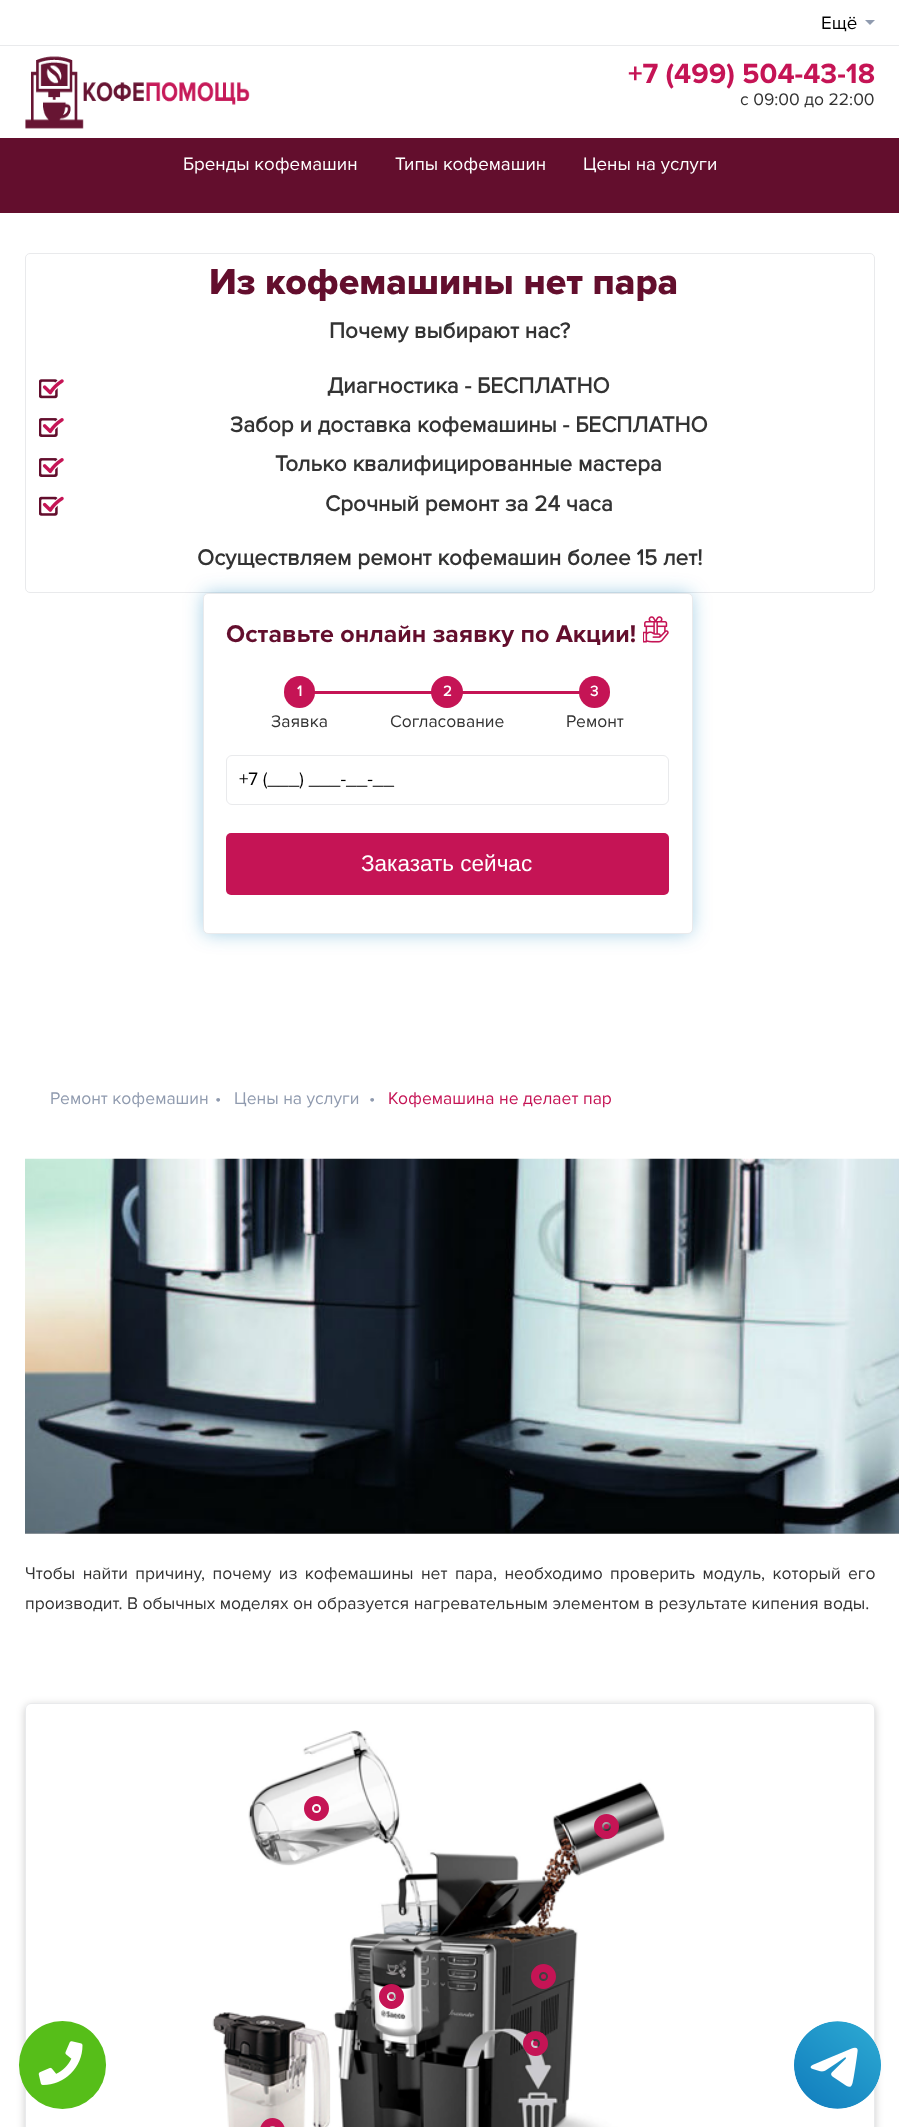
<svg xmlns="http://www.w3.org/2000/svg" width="899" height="2127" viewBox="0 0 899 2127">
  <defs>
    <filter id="blur1" x="-50%" y="-200%" width="200%" height="500%"><feGaussianBlur stdDeviation="9.5"/></filter>
    <clipPath id="clip1"><path d="M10 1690H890V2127H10ZM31 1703H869C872.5 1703 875 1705.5 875 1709V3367C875 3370.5 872.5 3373 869 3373H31C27.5 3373 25 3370.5 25 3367V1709C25 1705.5 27.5 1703 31 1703Z" clip-rule="evenodd"/></clipPath>
    <filter id="blur2" x="-50%" y="-200%" width="200%" height="500%"><feGaussianBlur stdDeviation="4.5"/></filter>
  </defs>
  <rect width="100%" height="100%" fill="#ffffff"/>
  <rect x="0" y="45" width="899" height="1" fill="#e9eaec"/>
  <text x="821" y="29" font-family="Proxima Nova" font-size="18.75" fill="#000000">Ещё</text>
  <path d="M865 20H875L870 25Z" fill="#909baf"/>
  <image x="25" y="56" width="225" height="73" href="img1.png"/>
  <text x="628" y="83" font-family="'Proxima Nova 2'" font-size="28.75" font-weight="bold" fill="#c51455">+7 (499) 504-43-18</text>
  <text x="740" y="105" font-family="Proxima Nova" font-size="17.5" fill="#333333">c 09:00 до 22:00</text>
  <rect x="0" y="138" width="899" height="75" fill="#630e2d"/>
  <text x="183" y="170" font-family="Proxima Nova" font-size="18.75" fill="#ffffff">Бренды кофемашин</text>
  <text x="395" y="170" font-family="Proxima Nova" font-size="18.75" fill="#ffffff">Типы кофемашин</text>
  <text x="583" y="170" font-family="Proxima Nova" font-size="18.75" fill="#ffffff">Цены на услуги</text>
  <rect x="25.5" y="253.5" width="849" height="339" rx="4.5" fill="none" stroke="#e9eaec"/>
  <text x="209" y="294" font-family="Proxima Nova" font-size="37.5" font-weight="800" fill="#630e2d">Из кофемашины нет пара</text>
  <text x="329" y="338" font-family="Proxima Nova" font-size="22.5" font-weight="bold" fill="#333333">Почему выбирают нас?</text>
  <image x="39" y="379" width="25" height="20" href="img2.png"/>
  <text x="327" y="393" font-family="Proxima Nova" font-size="22.5" font-weight="bold" fill="#333333">Диагностика - БЕСПЛАТНО</text>
  <image x="39" y="418" width="25" height="19" href="img3.png"/>
  <text x="230" y="432" font-family="Proxima Nova" font-size="22.5" font-weight="bold" fill="#333333">Забор и доставка кофемашины - БЕСПЛАТНО</text>
  <image x="39" y="458" width="25" height="19" href="img3.png"/>
  <text x="275" y="471" font-family="Proxima Nova" font-size="22.5" font-weight="bold" fill="#333333">Только квалифицированные мастера</text>
  <image x="39" y="496" width="25" height="20" href="img4.png"/>
  <text x="325" y="511" font-family="Proxima Nova" font-size="22.5" font-weight="bold" fill="#333333">Срочный ремонт за 24 часа</text>
  <text x="197" y="565" font-family="Proxima Nova" font-size="22.5" font-weight="bold" fill="#333333">Осуществляем ремонт кофемашин более 15 лет!</text>
  <rect x="204" y="594" width="487" height="339" rx="4" fill="#0078b8" fill-opacity="0.39" filter="url(#blur1)"/>
  <rect x="203.5" y="593.5" width="489" height="340" rx="4.5" fill="#ffffff" stroke="#e9eaec"/>
  <text x="226" y="642" font-family="'Proxima Nova 2'" font-size="25" font-weight="bold" fill="#630e2d">Оставьте онлайн заявку по Акции!</text>
  <image x="643" y="616" width="26" height="27" href="img5.png"/>
  <rect x="314" y="691" width="266" height="3" fill="#c51455"/>
  <rect x="284" y="676" width="31" height="32" rx="15.5" fill="#c51455"/>
  <text x="297" y="696" font-family="Proxima Nova" font-size="15" font-weight="bold" fill="#ffffff">1</text>
  <text x="271" y="727" font-family="Proxima Nova" font-size="17.5" fill="#333333">Заявка</text>
  <circle cx="447" cy="692" r="16" fill="#c51455"/>
  <text x="443" y="696" font-family="Proxima Nova" font-size="15" font-weight="bold" fill="#ffffff">2</text>
  <text x="390" y="727" font-family="Proxima Nova" font-size="17.5" fill="#333333">Согласование</text>
  <rect x="579" y="676" width="31" height="32" rx="15.5" fill="#c51455"/>
  <text x="590" y="696" font-family="Proxima Nova" font-size="15" font-weight="bold" fill="#ffffff">3</text>
  <text x="566" y="727" font-family="Proxima Nova" font-size="17.5" fill="#333333">Ремонт</text>
  <rect x="226.5" y="755.5" width="442" height="49" rx="5.5" fill="none" stroke="#e9eaec"/>
  <text x="239" y="785" font-family="Proxima Nova" font-size="18.75" fill="#000000">+7 (___) ___-__-__</text>
  <rect x="226" y="833" width="443" height="62" rx="5" fill="#c51455"/>
  <text x="361" y="871" font-family="Liberation Sans" font-size="22.5" fill="#ffffff">Заказать сейчас</text>
  <text x="50" y="1104" font-family="Proxima Nova" font-size="17.5" fill="#909baf">Ремонт кофемашин</text>
  <text x="215" y="1104" font-family="Proxima Nova" font-size="17.5" fill="#909baf">•</text>
  <text x="234" y="1104" font-family="Proxima Nova" font-size="17.5" fill="#909baf">Цены на услуги</text>
  <text x="369" y="1104" font-family="Proxima Nova" font-size="17.5" fill="#909baf">•</text>
  <text x="388" y="1104" font-family="Proxima Nova" font-size="17.5" fill="#c51455">Кофемашина не делает пар</text>
  <image x="25" y="1158" width="874" height="376" href="img6.png"/>
  <text x="25" y="1579" word-spacing="2.9" font-family="Proxima Nova" font-size="17.5" fill="#333333">Чтобы найти причину, почему из кофемашины нет пара, необходимо проверить модуль, который его</text>
  <text x="25" y="1609" font-family="Proxima Nova" font-size="17.5" fill="#333333">производит. В обычных моделях он образуется нагревательным элементом в результате кипения воды.</text>
  <g clip-path="url(#clip1)">
    <rect x="25" y="1705" width="850" height="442" rx="6" fill="#000000" fill-opacity="0.2" filter="url(#blur2)"/>
  </g>
  <rect x="25.5" y="1703.5" width="849" height="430" rx="5.5" fill="none" stroke="#e9eaec"/>
  <image x="212" y="1730" width="453" height="397" href="img7.png"/>
  <circle cx="316.5" cy="1808.5" r="8.5" fill="none" stroke="#c51455" stroke-width="8"/>
  <circle cx="316.5" cy="1808.5" r="2.5" fill="#c51455"/>
  <circle cx="606.5" cy="1826.5" r="8.5" fill="none" stroke="#c51455" stroke-width="8"/>
  <circle cx="606.5" cy="1826.5" r="2.5" fill="#c51455"/>
  <circle cx="543.5" cy="1976.5" r="8.5" fill="none" stroke="#c51455" stroke-width="8"/>
  <circle cx="543.5" cy="1976.5" r="2.5" fill="#c51455"/>
  <circle cx="391.5" cy="1996.5" r="8.5" fill="none" stroke="#c51455" stroke-width="8"/>
  <circle cx="391.5" cy="1996.5" r="2.5" fill="#c51455"/>
  <circle cx="535.5" cy="2043.5" r="8.5" fill="none" stroke="#c51455" stroke-width="8"/>
  <circle cx="535.5" cy="2043.5" r="2.5" fill="#c51455"/>
  <circle cx="272.5" cy="2130.5" r="8.5" fill="none" stroke="#c51455" stroke-width="8"/>
  <rect x="19" y="2021" width="87" height="88" rx="43.5" fill="#56be19"/>
  <image x="38" y="2041" width="45" height="44" href="img8.png"/>
  <rect x="794" y="2021" width="87" height="88" rx="43.5" fill="#ffffff"/>
  <image x="794" y="2021" width="87" height="88" href="img9.png"/>
</svg>
